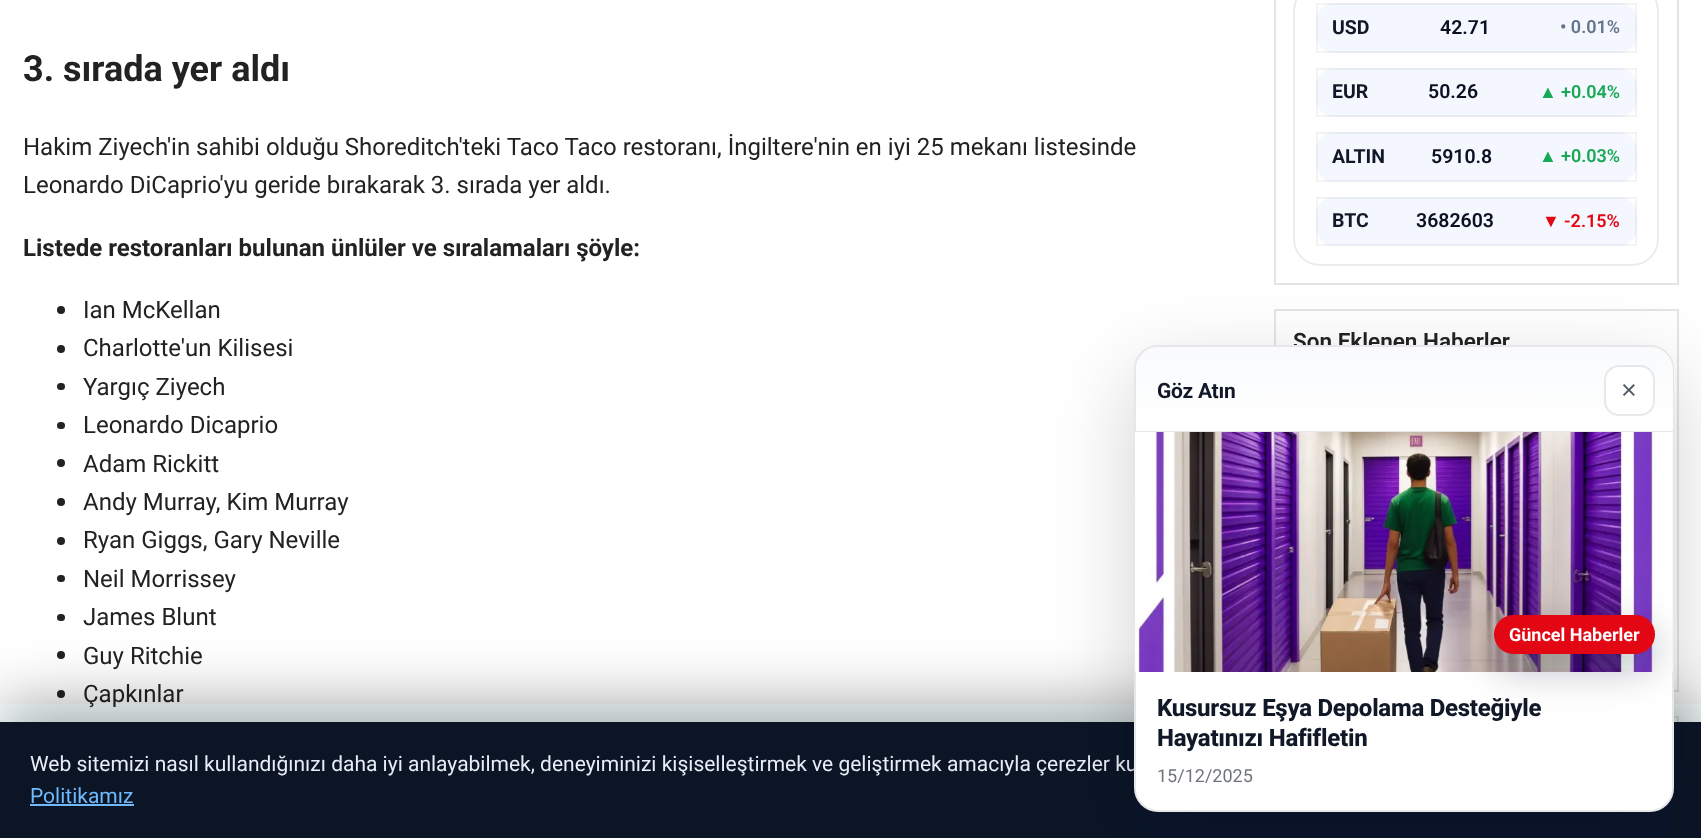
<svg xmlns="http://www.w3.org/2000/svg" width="1701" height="838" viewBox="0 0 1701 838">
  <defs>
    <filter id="blur1" x="-50%" y="-200%" width="200%" height="500%"><feGaussianBlur stdDeviation="30"/></filter>
    <filter id="blur2" x="-50%" y="-200%" width="200%" height="500%"><feGaussianBlur stdDeviation="41"/></filter>
    <linearGradient id="g1" gradientUnits="userSpaceOnUse" x1="1404" y1="346" x2="1404" y2="431"><stop offset="0" stop-color="#f8fafc" stop-opacity="0.95"/><stop offset="1" stop-color="#ffffff" stop-opacity="0.95"/></linearGradient>
    <linearGradient id="g2" gradientUnits="userSpaceOnUse" x1="1404" y1="431" x2="1404" y2="515"><stop offset="0" stop-color="#f8fafc" stop-opacity="0.95"/><stop offset="1" stop-color="#ffffff" stop-opacity="0.95"/></linearGradient>
    <clipPath id="clip1"><rect x="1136" y="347" width="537" height="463" rx="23"/></clipPath>
    <filter id="blur3" x="-50%" y="-200%" width="200%" height="500%"><feGaussianBlur stdDeviation="19.5"/></filter>
  </defs>
  <rect width="100%" height="100%" fill="#ffffff"/>
  <text x="23" y="81" font-family="Roboto" font-size="36" font-weight="bold" fill="#222222">3. sırada yer aldı</text>
  <text x="23" y="155" font-family="Roboto" font-size="24" fill="#222222">Hakim Ziyech'in sahibi olduğu Shoreditch'teki Taco Taco restoranı, İngiltere'nin en iyi 25 mekanı listesinde</text>
  <text x="23" y="193" font-family="Roboto" font-size="24" fill="#222222">Leonardo DiCaprio'yu geride bırakarak 3. sırada yer aldı.</text>
  <text x="23" y="256" font-family="Roboto" font-size="24" font-weight="bold" fill="#222222">Listede restoranları bulunan ünlüler ve sıralamaları şöyle:</text>
  <circle cx="61" cy="310" r="4" fill="#222222"/>
  <text x="83" y="318" font-family="Roboto" font-size="24" fill="#222222">Ian McKellan</text>
  <circle cx="61" cy="349" r="4" fill="#222222"/>
  <text x="83" y="356" font-family="Roboto" font-size="24" fill="#222222">Charlotte'un Kilisesi</text>
  <rect x="57" y="383" width="8" height="7" rx="3.5" fill="#222222"/>
  <text x="83" y="395" font-family="Roboto" font-size="24" fill="#222222">Yargıç Ziyech</text>
  <rect x="57" y="422" width="8" height="7" rx="3.5" fill="#222222"/>
  <text x="83" y="433" font-family="Roboto" font-size="24" fill="#222222">Leonardo Dicaprio</text>
  <circle cx="61" cy="463" r="4" fill="#222222"/>
  <text x="83" y="472" font-family="Roboto" font-size="24" fill="#222222">Adam Rickitt</text>
  <circle cx="61" cy="502" r="4" fill="#222222"/>
  <text x="83" y="510" font-family="Roboto" font-size="24" fill="#222222">Andy Murray, Kim Murray</text>
  <circle cx="61" cy="541" r="4" fill="#222222"/>
  <text x="83" y="548" font-family="Roboto" font-size="24" fill="#222222">Ryan Giggs, Gary Neville</text>
  <rect x="57" y="575" width="8" height="7" rx="3.5" fill="#222222"/>
  <text x="83" y="587" font-family="Roboto" font-size="24" fill="#222222">Neil Morrissey</text>
  <rect x="57" y="614" width="8" height="7" rx="3.5" fill="#222222"/>
  <text x="83" y="625" font-family="Roboto" font-size="24" fill="#222222">James Blunt</text>
  <circle cx="61" cy="655" r="4" fill="#222222"/>
  <text x="83" y="664" font-family="Roboto" font-size="24" fill="#222222">Guy Ritchie</text>
  <circle cx="61" cy="694" r="4" fill="#222222"/>
  <text x="83" y="702" font-family="Roboto" font-size="24" fill="#222222">Çapkınlar</text>
  <rect x="1275" y="-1" width="403" height="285" fill="none" stroke="#e4e4e4" stroke-width="2"/>
  <rect x="1294" y="-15" width="364" height="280" rx="26" fill="none" stroke="#ececee" stroke-width="2"/>
  <rect x="1316" y="3" width="321" height="50" rx="18" fill="#f5f7ff"/>
  <rect x="1317" y="4" width="319" height="48" fill="none" stroke="#0f172a" stroke-opacity="0.05" stroke-width="2"/>
  <text x="1332" y="34" font-family="Roboto" font-size="19.5" font-weight="bold" fill="#111827">USD</text>
  <text x="1440" y="34" font-family="Roboto" font-size="19.5" font-weight="600" fill="#0b1120">42.71</text>
  <text x="1560" y="33" font-family="Roboto" font-size="18" font-weight="600" fill="#64748b">• 0.01%</text>
  <rect x="1316" y="68" width="321" height="49" rx="18" fill="#f5f7ff"/>
  <rect x="1317" y="69" width="319" height="47" fill="none" stroke="#0f172a" stroke-opacity="0.05" stroke-width="2"/>
  <text x="1332" y="98" font-family="Roboto" font-size="19.5" font-weight="bold" fill="#111827">EUR</text>
  <text x="1428" y="98" font-family="Roboto" font-size="19.5" font-weight="600" fill="#0b1120">50.26</text>
  <text x="1539" y="98" font-family="Liberation Sans" font-size="18" font-weight="bold" fill="#18a957">▲</text>
  <text x="1561" y="98" font-family="Roboto" font-size="18" font-weight="600" fill="#18a957">+0.04%</text>
  <rect x="1316" y="132" width="321" height="50" rx="18" fill="#f5f7ff"/>
  <rect x="1317" y="133" width="319" height="48" fill="none" stroke="#0f172a" stroke-opacity="0.05" stroke-width="2"/>
  <text x="1332" y="163" font-family="Roboto" font-size="19.5" font-weight="bold" fill="#111827">ALTIN</text>
  <text x="1431" y="163" font-family="Roboto" font-size="19.5" font-weight="600" fill="#0b1120">5910.8</text>
  <text x="1539" y="162" font-family="Liberation Sans" font-size="18" font-weight="bold" fill="#18a957">▲</text>
  <text x="1561" y="162" font-family="Roboto" font-size="18" font-weight="600" fill="#18a957">+0.03%</text>
  <rect x="1316" y="197" width="321" height="49" rx="18" fill="#f5f7ff"/>
  <rect x="1317" y="198" width="319" height="47" fill="none" stroke="#0f172a" stroke-opacity="0.05" stroke-width="2"/>
  <text x="1332" y="227" font-family="Roboto" font-size="19.5" font-weight="bold" fill="#111827">BTC</text>
  <text x="1416" y="227" font-family="Roboto" font-size="19.5" font-weight="600" fill="#0b1120">3682603</text>
  <text x="1542" y="227" font-family="Liberation Sans" font-size="18" font-weight="bold" fill="#e30613">▼</text>
  <text x="1564" y="227" font-family="Roboto" font-size="18" font-weight="600" fill="#e30613">-2.15%</text>
  <rect x="1275" y="310" width="403" height="381" fill="none" stroke="#e4e4e4" stroke-width="2"/>
  <text x="1293" y="349" font-family="Roboto" font-size="22.5" font-weight="600" fill="#222222">Son Eklenen Haberler</text>
  <rect x="1275" y="717" width="403" height="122" fill="none" stroke="#e4e4e4" stroke-width="2"/>
  <rect x="0" y="704" width="1701" height="117" fill="#0c1522" fill-opacity="0.35" filter="url(#blur1)"/>
  <rect x="0" y="722" width="1701" height="116" fill="#0b1526"/>
  <text x="30" y="771" font-family="Roboto" font-size="21" fill="#e7ecf6">Web sitemizi nasıl kullandığınızı daha iyi anlayabilmek, deneyiminizi kişiselleştirmek ve geliştirmek amacıyla çerezler ku</text>
  <text x="30" y="803" font-family="Roboto" font-size="21" fill="#6fb9ff">Politikamız</text>
  <rect x="30" y="804" width="104" height="2" fill="#6fb9ff"/>
  <rect x="1134" y="372" width="540" height="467" rx="24" fill="#0f172a" fill-opacity="0.18" filter="url(#blur2)"/>
  <rect x="1134" y="345" width="540" height="467" rx="24" fill="#ffffff"/>
  <rect x="1135" y="346" width="538" height="465" rx="23" fill="none" stroke="#0f172a" stroke-opacity="0.1" stroke-width="2"/>
  <path d="M1159 347H1650C1662.5 347 1673 357.5 1673 370V431H1136V370C1136 357.5 1146.5 347 1159 347Z" fill="url(#g1)"/>
  <rect x="1136" y="431" width="537" height="1" fill="url(#g2)"/>
  <rect x="1136" y="431" width="537" height="1" fill="#0f172a" fill-opacity="0.08"/>
  <text x="1157" y="398" font-family="Roboto" font-size="21" font-weight="bold" letter-spacing="-0.25" fill="#111827">Göz Atın</text>
  <rect x="1605" y="366" width="49" height="49" rx="14" fill="#ffffff" stroke="#e7e8ea" stroke-width="2"/>
  <text x="1621" y="399" font-family="Liberation Sans" font-size="27" fill="#525866">×</text>
  <rect x="1672" y="432" width="1" height="240" fill="#f1f5f9"/>
  <image x="1135" y="432" width="538" height="240" href="img1.png"/>
  <g clip-path="url(#clip1)">
    <rect x="1494" y="630" width="161" height="39" rx="19.5" fill="#0f172a" fill-opacity="0.28" filter="url(#blur3)"/>
  </g>
  <rect x="1494" y="615" width="161" height="39" rx="19.5" fill="#e30613"/>
  <text x="1509" y="641" font-family="Roboto" font-size="18" font-weight="bold" fill="#ffffff">Güncel Haberler</text>
  <text x="1157" y="716" font-family="Roboto" font-size="24" font-weight="800" letter-spacing="-0.25" fill="#111827">Kusursuz Eşya Depolama Desteğiyle</text>
  <text x="1157" y="746" font-family="Roboto" font-size="24" font-weight="800" letter-spacing="-0.25" fill="#111827">Hayatınızı Hafifletin</text>
  <text x="1157" y="782" font-family="Roboto" font-size="18" fill="#6f747f">15/12/2025</text>
</svg>
